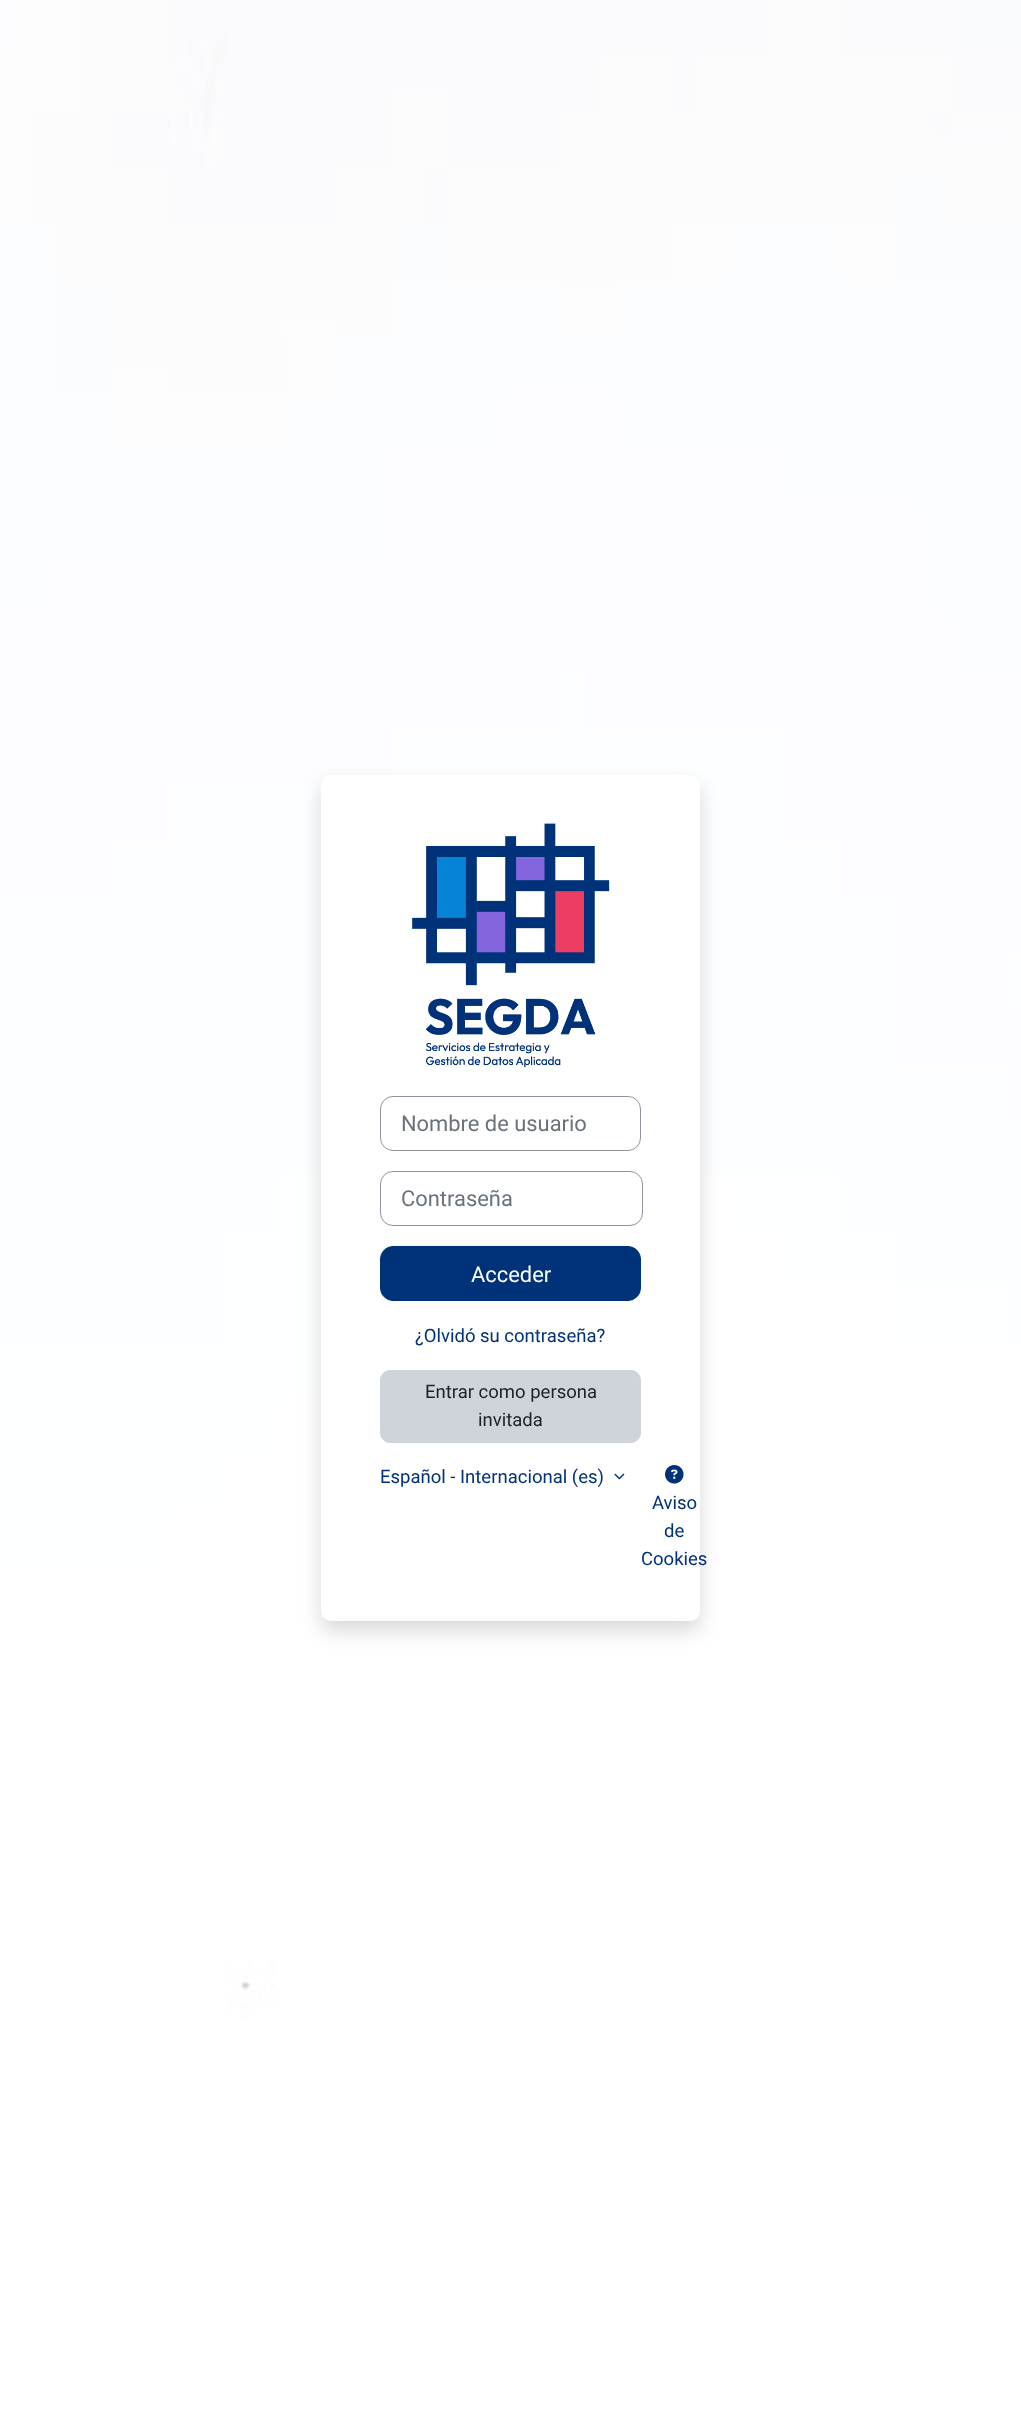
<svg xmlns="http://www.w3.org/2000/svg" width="1021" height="2414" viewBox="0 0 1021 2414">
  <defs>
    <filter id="blur1" x="-50%" y="-200%" width="200%" height="500%"><feGaussianBlur stdDeviation="10"/></filter>
  </defs>
  <rect width="100%" height="100%" fill="#ffffff"/>
  <image x="0" y="0" width="1021" height="2414" href="img1.png"/>
  <rect x="321" y="785" width="379" height="846" rx="10" fill="#000000" fill-opacity="0.15" filter="url(#blur1)"/>
  <rect x="321" y="775" width="379" height="846" rx="10" fill="#ffffff"/>
  <image x="412" y="823" width="198" height="245" href="img2.png"/>
  <rect x="380.5" y="1096.5" width="260" height="54" rx="12.5" fill="none" stroke="#8f959e"/>
  <text x="401" y="1131" font-family="Roboto" font-size="21.9" fill="#6a737b">Nombre de usuario</text>
  <rect x="380.5" y="1171.5" width="262" height="54" rx="12.5" fill="none" stroke="#8f959e"/>
  <text x="401" y="1206" font-family="Roboto" font-size="21.9" fill="#6a737b">Contraseña</text>
  <rect x="380.5" y="1246.5" width="260" height="54" rx="12.5" fill="#00327a" stroke="#00327a"/>
  <text x="471" y="1282" font-family="Roboto" font-size="21.9" fill="#ffffff">Acceder</text>
  <text x="415" y="1342" font-family="Roboto" font-size="18.5" fill="#00327a">¿Olvidó su contraseña?</text>
  <rect x="380.5" y="1370.5" width="260" height="72" rx="9.5" fill="#ced4da" stroke="#ced4da"/>
  <text x="425" y="1398" font-family="Roboto" font-size="18.5" fill="#1d2125">Entrar como persona</text>
  <text x="478" y="1426" font-family="Roboto" font-size="18.5" fill="#1d2125">invitada</text>
  <text x="380" y="1483" font-family="Roboto" font-size="18.5" fill="#00327a">Español - Internacional (es)</text>
  <image x="614" y="1473" width="11" height="7" href="img3.png"/>
  <image x="665" y="1465" width="19" height="19" href="img4.png"/>
  <text x="652" y="1509" font-family="Roboto" font-size="18.5" fill="#00327a">Aviso</text>
  <text x="664" y="1537" font-family="Roboto" font-size="18.5" fill="#00327a">de</text>
  <text x="641" y="1565" font-family="Roboto" font-size="18.5" fill="#00327a">Cookies</text>
</svg>
